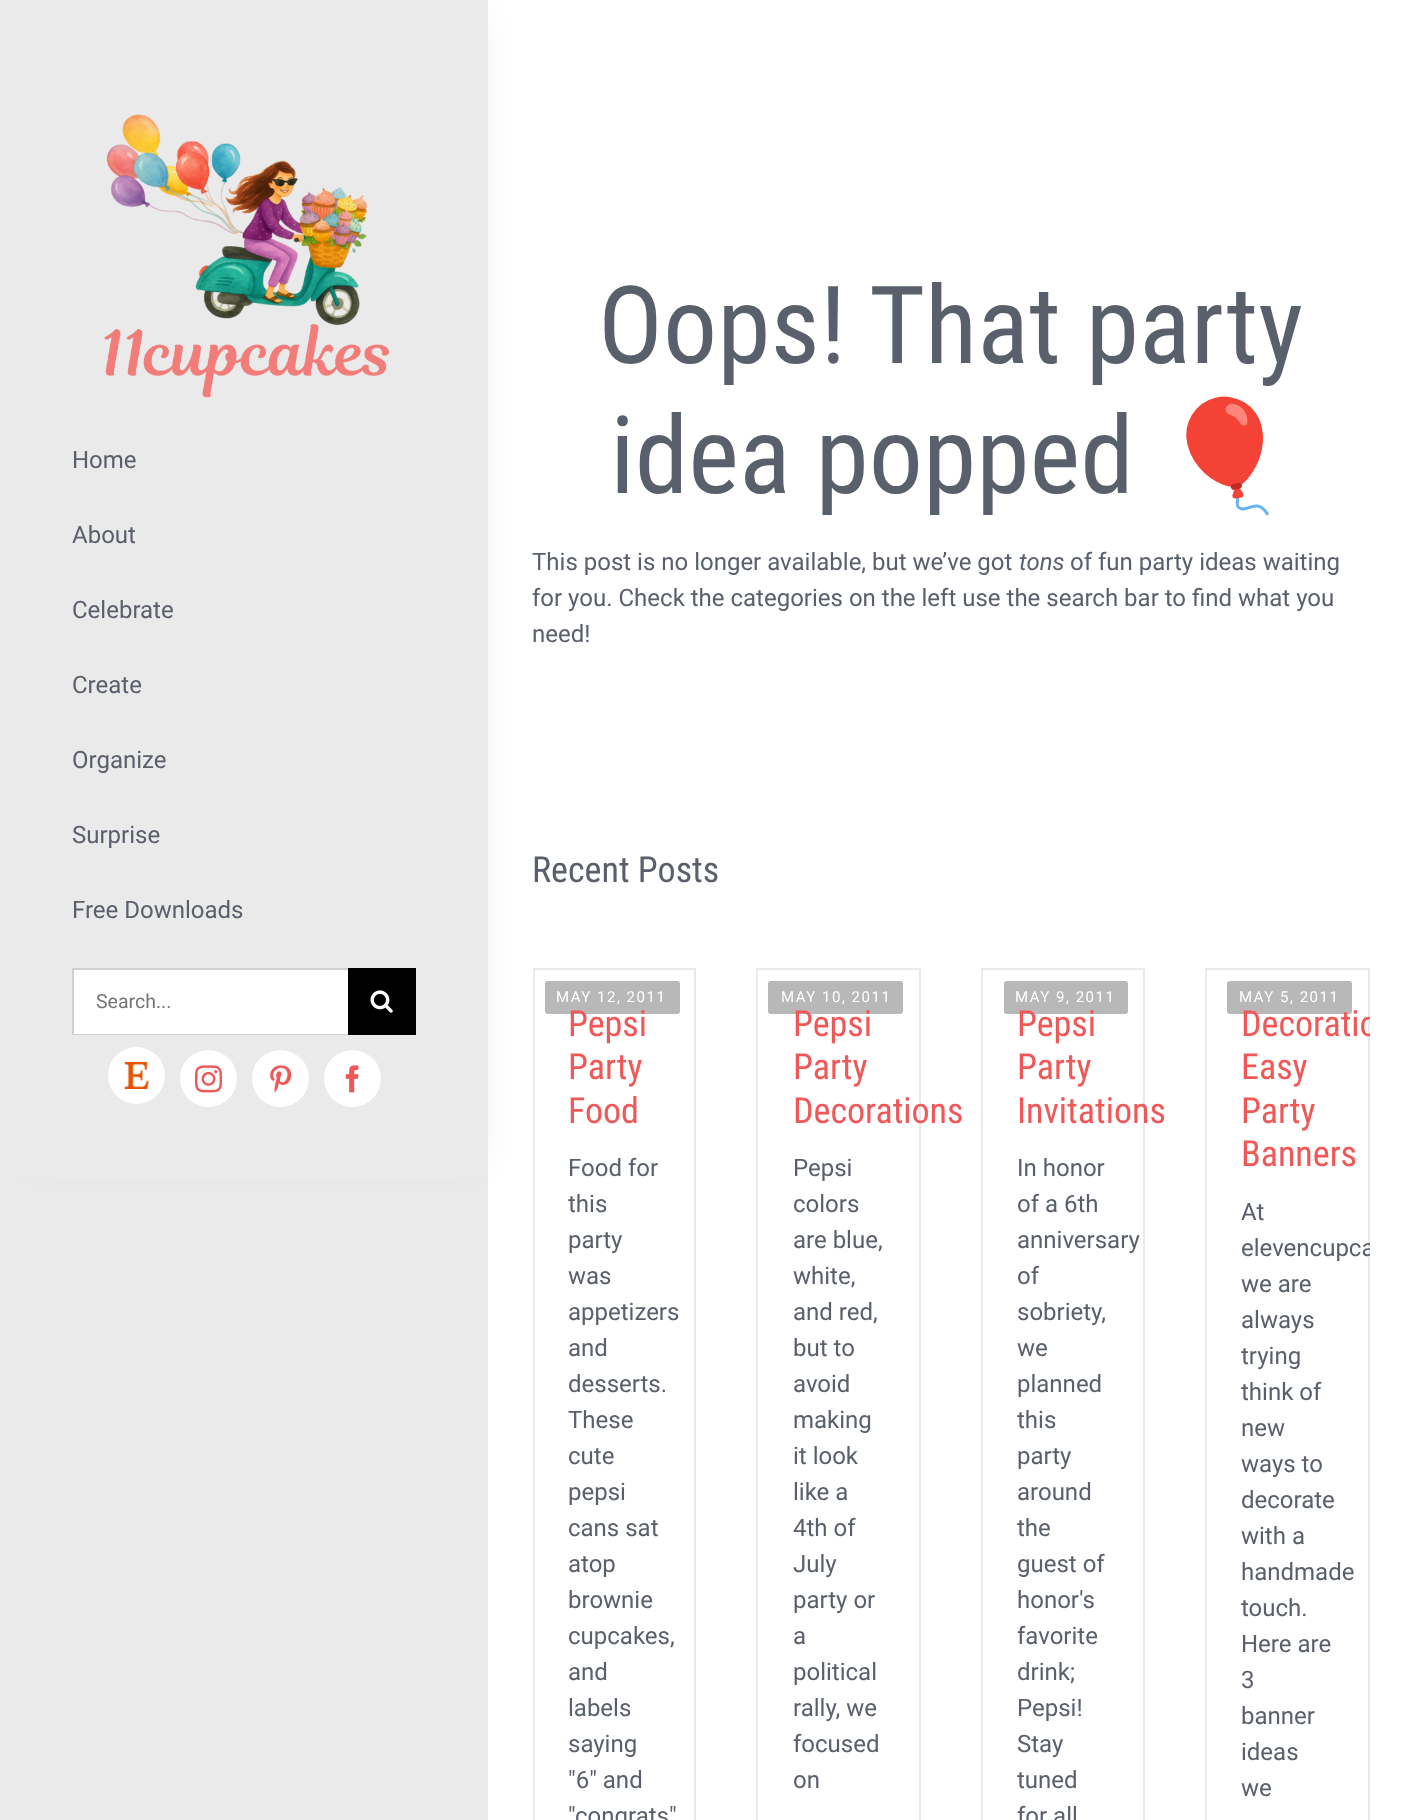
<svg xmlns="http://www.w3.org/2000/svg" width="1414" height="1820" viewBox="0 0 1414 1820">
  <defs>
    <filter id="blur1" x="-50%" y="-200%" width="200%" height="500%"><feGaussianBlur stdDeviation="16.5"/></filter>
    <clipPath id="clip1"><rect x="533" y="956" width="837" height="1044"/></clipPath>
  </defs>
  <rect width="100%" height="100%" fill="#ffffff"/>
  <rect x="0" y="1179" width="488" height="641" fill="#ebeaea"/>
  <rect x="30" y="18" width="452" height="1143" fill="#000000" fill-opacity="0.07" filter="url(#blur1)"/>
  <rect x="0" y="0" width="488" height="1179" fill="#ebeaea"/>
  <image x="104" y="114" width="285" height="284" href="img1.png"/>
  <text x="72" y="468" font-family="Roboto" font-size="24" fill="#595f6b">Home</text>
  <text x="72" y="543" font-family="Roboto" font-size="24" fill="#595f6b">About</text>
  <text x="72" y="618" font-family="Roboto" font-size="24" fill="#595f6b">Celebrate</text>
  <text x="72" y="693" font-family="Roboto" font-size="24" fill="#595f6b">Create</text>
  <text x="72" y="768" font-family="Roboto" font-size="24" fill="#595f6b">Organize</text>
  <text x="72" y="843" font-family="Roboto" font-size="24" fill="#595f6b">Surprise</text>
  <text x="72" y="918" font-family="Roboto" font-size="24" fill="#595f6b">Free Downloads</text>
  <rect x="74" y="970" width="274" height="64" fill="#ffffff"/>
  <rect x="72" y="968" width="276" height="2" fill="#d1d1d1"/>
  <rect x="72" y="1034" width="276" height="1" fill="#d1d1d1"/>
  <rect x="72" y="968" width="2" height="67" fill="#d1d1d1"/>
  <text x="96" y="1008" font-family="Roboto" font-size="19.5" fill="#747474">Search...</text>
  <rect x="348" y="968" width="68" height="67" fill="#000000"/>
  <image x="370" y="990" width="23" height="23" href="img2.png"/>
  <circle cx="136.5" cy="1075.5" r="28.5" fill="#ffffff"/>
  <image x="124" y="1062" width="25" height="27" href="img3.png"/>
  <circle cx="208.5" cy="1078.5" r="28.5" fill="#ffffff"/>
  <image x="195" y="1065" width="27" height="28" href="img4.png"/>
  <circle cx="280.5" cy="1078.5" r="28.5" fill="#ffffff"/>
  <image x="270" y="1065" width="22" height="28" href="img5.png"/>
  <circle cx="352.5" cy="1078.5" r="28.5" fill="#ffffff"/>
  <image x="345" y="1065" width="14" height="28" href="img6.png"/>
  <text x="598" y="363" font-family="Roboto Condensed" font-size="108" fill="#595f6b">Oops! That party</text>
  <text x="610" y="493" font-family="Roboto Condensed" font-size="108" fill="#595f6b">idea popped</text>
  <text x="1158" y="493" font-family="Noto Color Emoji" font-size="108" fill="#595f6b">🎈</text>
  <text x="532" y="570" font-family="Roboto" font-size="24" fill="#595f6b">This post is no longer available, but we’ve got</text>
  <text x="1019" y="570" font-family="Roboto" font-size="24" font-style="italic" fill="#595f6b">tons</text>
  <text x="1070" y="570" font-family="Roboto" font-size="24" fill="#595f6b">of fun party ideas waiting</text>
  <text x="532" y="606" font-family="Roboto" font-size="24" fill="#595f6b">for you. Check the categories on the left use the search bar to find what you</text>
  <text x="532" y="642" font-family="Roboto" font-size="24" fill="#595f6b">need!</text>
  <text x="532" y="882" font-family="Roboto Condensed" font-size="36" fill="#595f6b">Recent Posts</text>
  <rect x="534" y="969" width="161" height="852" fill="none" stroke="#ebeaea" stroke-width="2"/>
  <rect x="545" y="981" width="135" height="33" rx="3" fill="#b8b8b8"/>
  <text x="556" y="1002" font-family="Roboto" font-size="15" letter-spacing="1.5" fill="#ffffff">MAY 12, 2011</text>
  <text x="568" y="1036" font-family="Roboto Condensed" font-size="36" fill="#f05858">Pepsi</text>
  <text x="568" y="1079" font-family="Roboto Condensed" font-size="36" fill="#f05858">Party</text>
  <text x="568" y="1123" font-family="Roboto Condensed" font-size="36" fill="#f05858">Food</text>
  <text x="568" y="1176" font-family="Roboto" font-size="24" fill="#595f6b">Food for</text>
  <text x="568" y="1212" font-family="Roboto" font-size="24" fill="#595f6b">this</text>
  <text x="568" y="1248" font-family="Roboto" font-size="24" fill="#595f6b">party</text>
  <text x="568" y="1284" font-family="Roboto" font-size="24" fill="#595f6b">was</text>
  <text x="568" y="1320" font-family="Roboto" font-size="24" fill="#595f6b">appetizers</text>
  <text x="568" y="1356" font-family="Roboto" font-size="24" fill="#595f6b">and</text>
  <text x="568" y="1392" font-family="Roboto" font-size="24" fill="#595f6b">desserts.</text>
  <text x="568" y="1428" font-family="Roboto" font-size="24" fill="#595f6b">These</text>
  <text x="568" y="1464" font-family="Roboto" font-size="24" fill="#595f6b">cute</text>
  <text x="568" y="1500" font-family="Roboto" font-size="24" fill="#595f6b">pepsi</text>
  <text x="568" y="1536" font-family="Roboto" font-size="24" fill="#595f6b">cans sat</text>
  <text x="568" y="1572" font-family="Roboto" font-size="24" fill="#595f6b">atop</text>
  <text x="568" y="1608" font-family="Roboto" font-size="24" fill="#595f6b">brownie</text>
  <text x="568" y="1644" font-family="Roboto" font-size="24" fill="#595f6b">cupcakes,</text>
  <text x="568" y="1680" font-family="Roboto" font-size="24" fill="#595f6b">and</text>
  <text x="568" y="1716" font-family="Roboto" font-size="24" fill="#595f6b">labels</text>
  <text x="568" y="1752" font-family="Roboto" font-size="24" fill="#595f6b">saying</text>
  <text x="568" y="1788" font-family="Roboto" font-size="24" fill="#595f6b">"6" and</text>
  <text x="568" y="1824" font-family="Roboto" font-size="24" fill="#595f6b">"congrats"</text>
  <rect x="757" y="969" width="163" height="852" fill="none" stroke="#ebeaea" stroke-width="2"/>
  <rect x="768" y="981" width="135" height="33" rx="3" fill="#b8b8b8"/>
  <text x="781" y="1002" font-family="Roboto" font-size="15" letter-spacing="1.5" fill="#ffffff">MAY 10, 2011</text>
  <text x="793" y="1036" font-family="Roboto Condensed" font-size="36" fill="#f05858">Pepsi</text>
  <text x="793" y="1079" font-family="Roboto Condensed" font-size="36" fill="#f05858">Party</text>
  <text x="793" y="1123" font-family="Roboto Condensed" font-size="36" fill="#f05858">Decorations</text>
  <text x="793" y="1176" font-family="Roboto" font-size="24" fill="#595f6b">Pepsi</text>
  <text x="793" y="1212" font-family="Roboto" font-size="24" fill="#595f6b">colors</text>
  <text x="793" y="1248" font-family="Roboto" font-size="24" fill="#595f6b">are blue,</text>
  <text x="793" y="1284" font-family="Roboto" font-size="24" fill="#595f6b">white,</text>
  <text x="793" y="1320" font-family="Roboto" font-size="24" fill="#595f6b">and red,</text>
  <text x="793" y="1356" font-family="Roboto" font-size="24" fill="#595f6b">but to</text>
  <text x="793" y="1392" font-family="Roboto" font-size="24" fill="#595f6b">avoid</text>
  <text x="793" y="1428" font-family="Roboto" font-size="24" fill="#595f6b">making</text>
  <text x="793" y="1464" font-family="Roboto" font-size="24" fill="#595f6b">it look</text>
  <text x="793" y="1500" font-family="Roboto" font-size="24" fill="#595f6b">like a</text>
  <text x="793" y="1536" font-family="Roboto" font-size="24" fill="#595f6b">4th of</text>
  <text x="793" y="1572" font-family="Roboto" font-size="24" fill="#595f6b">July</text>
  <text x="793" y="1608" font-family="Roboto" font-size="24" fill="#595f6b">party or</text>
  <text x="793" y="1644" font-family="Roboto" font-size="24" fill="#595f6b">a</text>
  <text x="793" y="1680" font-family="Roboto" font-size="24" fill="#595f6b">political</text>
  <text x="793" y="1716" font-family="Roboto" font-size="24" fill="#595f6b">rally, we</text>
  <text x="793" y="1752" font-family="Roboto" font-size="24" fill="#595f6b">focused</text>
  <text x="793" y="1788" font-family="Roboto" font-size="24" fill="#595f6b">on</text>
  <rect x="982" y="969" width="162" height="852" fill="none" stroke="#ebeaea" stroke-width="2"/>
  <rect x="1004" y="981" width="124" height="33" rx="3" fill="#b8b8b8"/>
  <text x="1015" y="1002" font-family="Roboto" font-size="15" letter-spacing="1.5" fill="#ffffff">MAY 9, 2011</text>
  <text x="1017" y="1036" font-family="Roboto Condensed" font-size="36" fill="#f05858">Pepsi</text>
  <text x="1017" y="1079" font-family="Roboto Condensed" font-size="36" fill="#f05858">Party</text>
  <text x="1017" y="1123" font-family="Roboto Condensed" font-size="36" fill="#f05858">Invitations</text>
  <text x="1017" y="1176" font-family="Roboto" font-size="24" fill="#595f6b">In honor</text>
  <text x="1017" y="1212" font-family="Roboto" font-size="24" fill="#595f6b">of a 6th</text>
  <text x="1017" y="1248" font-family="Roboto" font-size="24" fill="#595f6b">anniversary</text>
  <text x="1017" y="1284" font-family="Roboto" font-size="24" fill="#595f6b">of</text>
  <text x="1017" y="1320" font-family="Roboto" font-size="24" fill="#595f6b">sobriety,</text>
  <text x="1017" y="1356" font-family="Roboto" font-size="24" fill="#595f6b">we</text>
  <text x="1017" y="1392" font-family="Roboto" font-size="24" fill="#595f6b">planned</text>
  <text x="1017" y="1428" font-family="Roboto" font-size="24" fill="#595f6b">this</text>
  <text x="1017" y="1464" font-family="Roboto" font-size="24" fill="#595f6b">party</text>
  <text x="1017" y="1500" font-family="Roboto" font-size="24" fill="#595f6b">around</text>
  <text x="1017" y="1536" font-family="Roboto" font-size="24" fill="#595f6b">the</text>
  <text x="1017" y="1572" font-family="Roboto" font-size="24" fill="#595f6b">guest of</text>
  <text x="1017" y="1608" font-family="Roboto" font-size="24" fill="#595f6b">honor's</text>
  <text x="1017" y="1644" font-family="Roboto" font-size="24" fill="#595f6b">favorite</text>
  <text x="1017" y="1680" font-family="Roboto" font-size="24" fill="#595f6b">drink;</text>
  <text x="1017" y="1716" font-family="Roboto" font-size="24" fill="#595f6b">Pepsi!</text>
  <text x="1017" y="1752" font-family="Roboto" font-size="24" fill="#595f6b">Stay</text>
  <text x="1017" y="1788" font-family="Roboto" font-size="24" fill="#595f6b">tuned</text>
  <text x="1017" y="1824" font-family="Roboto" font-size="24" fill="#595f6b">for all</text>
  <rect x="1206" y="969" width="163" height="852" fill="none" stroke="#ebeaea" stroke-width="2"/>
  <rect x="1227" y="981" width="125" height="33" rx="3" fill="#b8b8b8"/>
  <text x="1239" y="1002" font-family="Roboto" font-size="15" letter-spacing="1.5" fill="#ffffff">MAY 5, 2011</text>
  <g clip-path="url(#clip1)">
    <text x="1241" y="1036" font-family="Roboto Condensed" font-size="36" fill="#f05858">Decoratio</text>
  </g>
  <text x="1241" y="1079" font-family="Roboto Condensed" font-size="36" fill="#f05858">Easy</text>
  <text x="1241" y="1123" font-family="Roboto Condensed" font-size="36" fill="#f05858">Party</text>
  <text x="1241" y="1166" font-family="Roboto Condensed" font-size="36" fill="#f05858">Banners</text>
  <text x="1241" y="1220" font-family="Roboto" font-size="24" fill="#595f6b">At</text>
  <g clip-path="url(#clip1)">
    <text x="1241" y="1256" font-family="Roboto" font-size="24" fill="#595f6b">elevencupca</text>
  </g>
  <text x="1241" y="1292" font-family="Roboto" font-size="24" fill="#595f6b">we are</text>
  <text x="1241" y="1328" font-family="Roboto" font-size="24" fill="#595f6b">always</text>
  <text x="1241" y="1364" font-family="Roboto" font-size="24" fill="#595f6b">trying</text>
  <text x="1241" y="1400" font-family="Roboto" font-size="24" fill="#595f6b">think of</text>
  <text x="1241" y="1436" font-family="Roboto" font-size="24" fill="#595f6b">new</text>
  <text x="1241" y="1472" font-family="Roboto" font-size="24" fill="#595f6b">ways to</text>
  <text x="1241" y="1508" font-family="Roboto" font-size="24" fill="#595f6b">decorate</text>
  <text x="1241" y="1544" font-family="Roboto" font-size="24" fill="#595f6b">with a</text>
  <text x="1241" y="1580" font-family="Roboto" font-size="24" fill="#595f6b">handmade</text>
  <text x="1241" y="1616" font-family="Roboto" font-size="24" fill="#595f6b">touch.</text>
  <text x="1241" y="1652" font-family="Roboto" font-size="24" fill="#595f6b">Here are</text>
  <text x="1241" y="1688" font-family="Roboto" font-size="24" fill="#595f6b">3</text>
  <text x="1241" y="1724" font-family="Roboto" font-size="24" fill="#595f6b">banner</text>
  <text x="1241" y="1760" font-family="Roboto" font-size="24" fill="#595f6b">ideas</text>
  <text x="1241" y="1796" font-family="Roboto" font-size="24" fill="#595f6b">we</text>
</svg>
